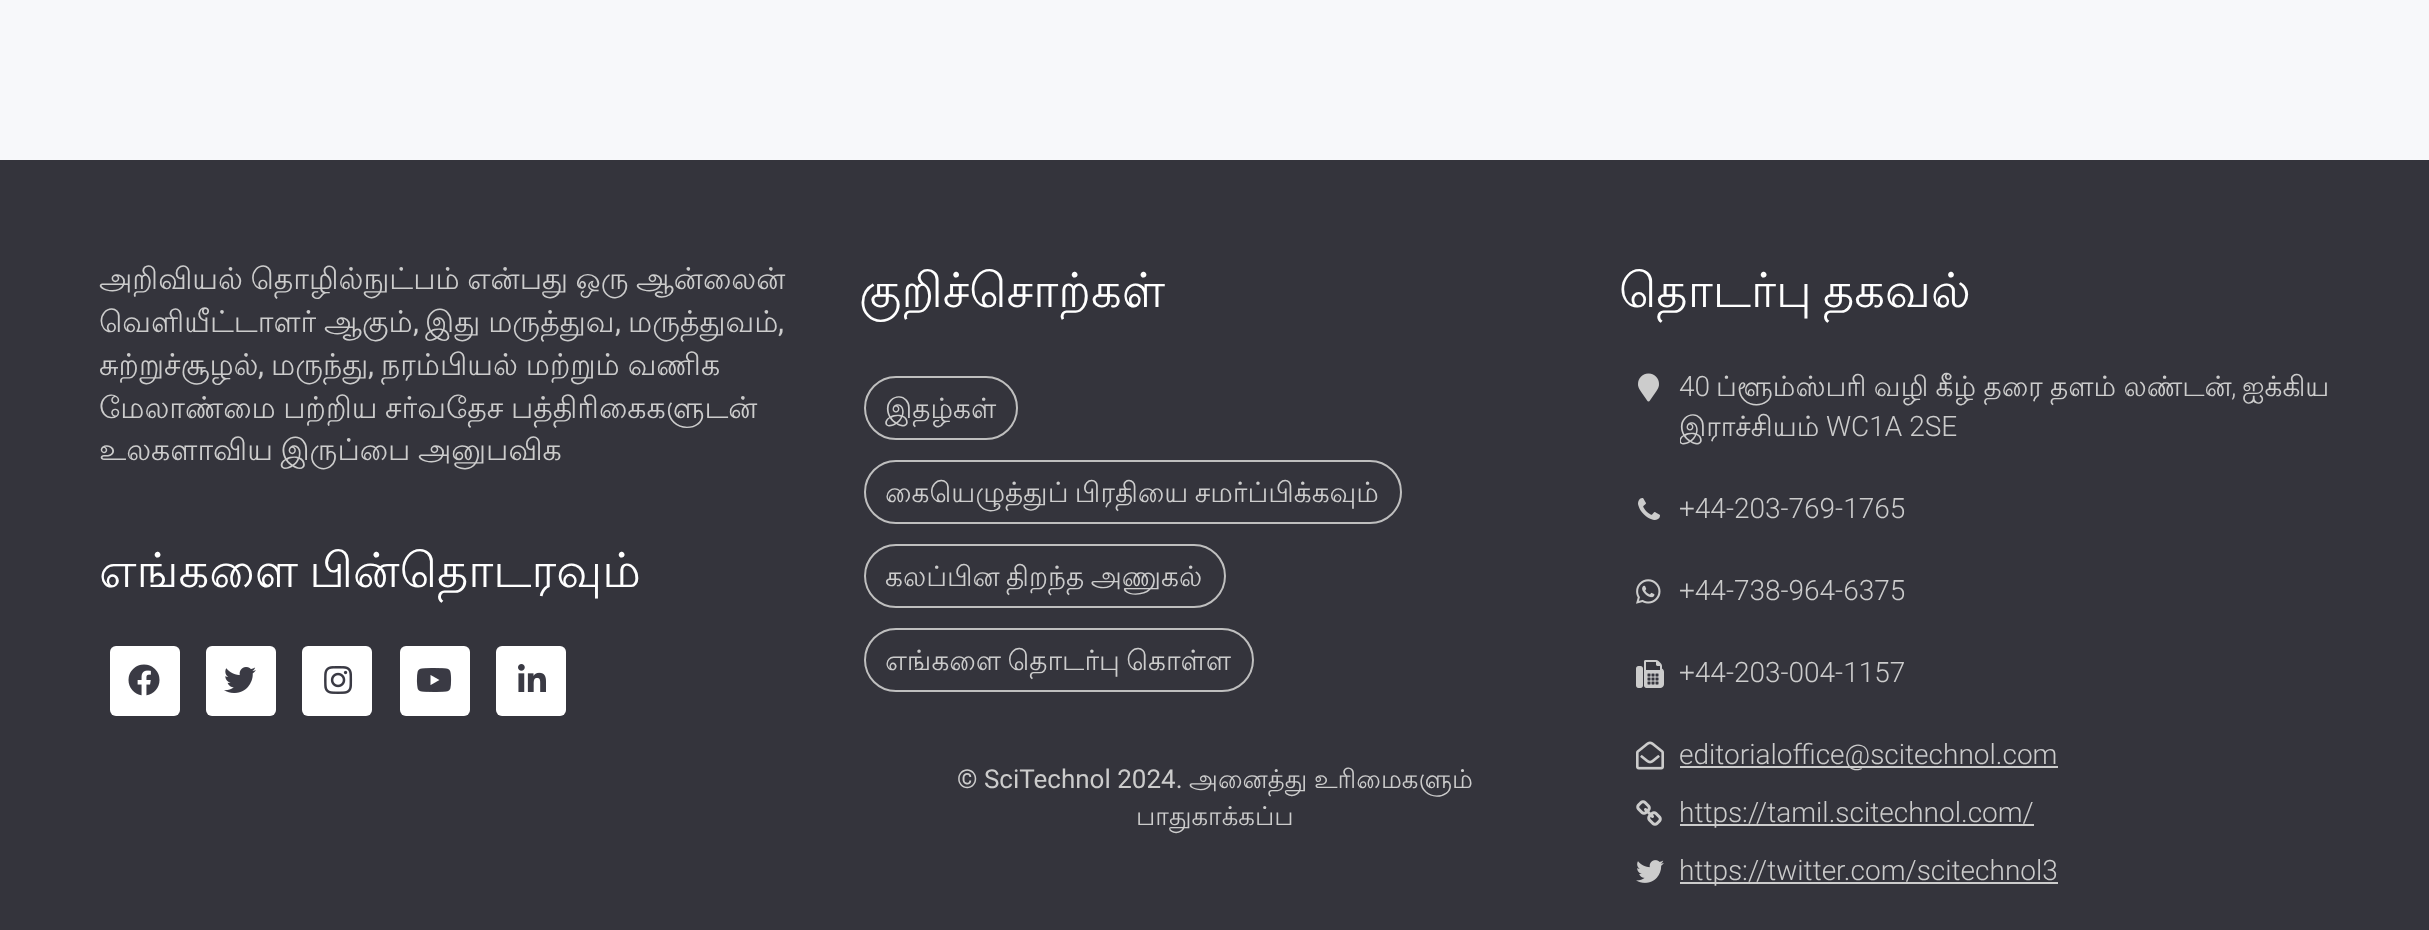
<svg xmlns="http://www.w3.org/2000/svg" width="2429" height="930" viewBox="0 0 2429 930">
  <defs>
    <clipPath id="clip1"><rect x="1680" y="366" width="652" height="112"/></clipPath>
  </defs>
  <rect width="100%" height="100%" fill="#f7f8fa"/>
  <rect x="0" y="160" width="2429" height="770" fill="#34343c"/>
  <text x="99" y="289" word-spacing="-1.5" font-family="Lohit Tamil" font-size="30" fill="#cccccc">அறிவியல் தொழில்நுட்பம் என்பது ஒரு ஆன்லைன்</text>
  <text x="99" y="332" word-spacing="-1" font-family="Lohit Tamil" font-size="30" fill="#cccccc">வெளியீட்டாளர் ஆகும்</text>
  <text x="413" y="332" font-family="Roboto" font-size="30" fill="#cccccc">,</text>
  <text x="425" y="332" word-spacing="-1" font-family="Lohit Tamil" font-size="30" fill="#cccccc">இது மருத்துவ</text>
  <text x="615" y="332" font-family="Roboto" font-size="30" fill="#cccccc">,</text>
  <text x="628" y="332" font-family="Lohit Tamil" font-size="30" fill="#cccccc">மருத்துவம்</text>
  <text x="778" y="332" font-family="Roboto" font-size="30" fill="#cccccc">,</text>
  <text x="99" y="375" font-family="Lohit Tamil" font-size="30" fill="#cccccc">சுற்றுச்சூழல்</text>
  <text x="258" y="375" font-family="Roboto" font-size="30" fill="#cccccc">,</text>
  <text x="271" y="375" font-family="Lohit Tamil" font-size="30" fill="#cccccc">மருந்து</text>
  <text x="368" y="375" font-family="Roboto" font-size="30" fill="#cccccc">,</text>
  <text x="381" y="375" word-spacing="-1" font-family="Lohit Tamil" font-size="30" fill="#cccccc">நரம்பியல் மற்றும் வணிக</text>
  <text x="99" y="418" word-spacing="-1.5" font-family="Lohit Tamil" font-size="30" fill="#cccccc">மேலாண்மை பற்றிய சர்வதேச பத்திரிகைகளுடன்</text>
  <text x="99" y="460" word-spacing="-1.5" font-family="Lohit Tamil" font-size="30" fill="#cccccc">உலகளாவிய இருப்பை அனுபவிக</text>
  <text x="99" y="587" word-spacing="-3" font-family="Lohit Tamil" font-size="48" fill="#ffffff">எங்களை பின்தொடரவும்</text>
  <rect x="110" y="646" width="70" height="70" rx="6" fill="#ffffff"/>
  <image x="128" y="664" width="32" height="32" href="img1.png"/>
  <rect x="206" y="646" width="70" height="70" rx="6" fill="#ffffff"/>
  <image x="224" y="667" width="32" height="26" href="img2.png"/>
  <rect x="302" y="646" width="70" height="70" rx="6" fill="#ffffff"/>
  <image x="324" y="666" width="29" height="28" href="img3.png"/>
  <rect x="400" y="646" width="70" height="70" rx="6" fill="#ffffff"/>
  <image x="416" y="668" width="36" height="24" href="img4.png"/>
  <rect x="496" y="646" width="70" height="70" rx="6" fill="#ffffff"/>
  <image x="518" y="664" width="28" height="28" href="img5.png"/>
  <text x="859" y="307" font-family="Lohit Tamil" font-size="48" fill="#ffffff">குறிச்சொற்கள்</text>
  <rect x="865" y="377" width="152" height="62" rx="31" fill="none" stroke="#bfbfbf" stroke-width="2"/>
  <text x="885" y="418" font-family="Lohit Tamil" font-size="28" fill="#cccccc">இதழ்கள்</text>
  <rect x="865" y="461" width="536" height="62" rx="31" fill="none" stroke="#bfbfbf" stroke-width="2"/>
  <text x="885" y="502" word-spacing="-2" font-family="Lohit Tamil" font-size="28" fill="#cccccc">கையெழுத்துப் பிரதியை சமர்ப்பிக்கவும்</text>
  <rect x="865" y="545" width="360" height="62" rx="31" fill="none" stroke="#bfbfbf" stroke-width="2"/>
  <text x="885" y="586" word-spacing="-2" font-family="Lohit Tamil" font-size="28" fill="#cccccc">கலப்பின திறந்த அணுகல்</text>
  <rect x="865" y="629" width="388" height="62" rx="31" fill="none" stroke="#bfbfbf" stroke-width="2"/>
  <text x="885" y="670" word-spacing="-2" font-family="Lohit Tamil" font-size="28" fill="#cccccc">எங்களை தொடர்பு கொள்ள</text>
  <text x="957" y="788" font-family="Roboto" font-size="26" fill="#cccccc">© SciTechnol 2024.</text>
  <text x="1189" y="788" font-family="Lohit Tamil" font-size="26" fill="#cccccc">அனைத்து</text>
  <text x="1314" y="788" font-family="Lohit Tamil" font-size="26" fill="#cccccc">உரிமைகளும்</text>
  <text x="1136" y="825" font-family="Lohit Tamil" font-size="26" fill="#cccccc">பாதுகாக்கப்ப</text>
  <text x="1619" y="307" word-spacing="-3" font-family="Lohit Tamil" font-size="48" fill="#ffffff">தொடர்பு தகவல்</text>
  <image x="1638" y="373" width="21" height="29" href="img6.png"/>
  <text x="1679" y="396" font-family="Roboto" font-size="28" font-weight="300" fill="#cccccc">40</text>
  <text x="1716" y="396" word-spacing="-1" font-family="Lohit Tamil" font-size="28" fill="#cccccc">ப்ளூம்ஸ்பரி வழி கீழ் தரை தளம் லண்டன்</text>
  <text x="2231" y="396" font-family="Roboto" font-size="28" font-weight="300" fill="#cccccc">,</text>
  <text x="2242" y="396" font-family="Lohit Tamil" font-size="28" fill="#cccccc">ஐக்கிய</text>
  <g clip-path="url(#clip1)">
    <text x="1679" y="436" font-family="Lohit Tamil" font-size="28" fill="#cccccc">இராச்சியம்</text>
  </g>
  <text x="1826" y="436" font-family="Roboto" font-size="28" font-weight="300" fill="#cccccc">WC1A 2SE</text>
  <image x="1638" y="498" width="22" height="22" href="img7.png"/>
  <text x="1679" y="518" font-family="Roboto" font-size="28" font-weight="300" fill="#cccccc">+44-203-769-1765</text>
  <image x="1636" y="579" width="25" height="25" href="img8.png"/>
  <text x="1679" y="600" font-family="Roboto" font-size="28" font-weight="300" fill="#cccccc">+44-738-964-6375</text>
  <image x="1636" y="660" width="28" height="28" href="img9.png"/>
  <text x="1679" y="682" font-family="Roboto" font-size="28" font-weight="300" fill="#cccccc">+44-203-004-1157</text>
  <image x="1636" y="741" width="28" height="29" href="img10.png"/>
  <rect x="1680" y="766" width="378" height="2" fill="#cccccc"/>
  <text x="1679" y="764" font-family="Roboto" font-size="28" font-weight="300" fill="#cccccc">editorialoffice@scitechnol.com</text>
  <image x="1636" y="800" width="26" height="26" href="img11.png"/>
  <rect x="1680" y="824" width="354" height="2" fill="#cccccc"/>
  <text x="1679" y="822" font-family="Roboto" font-size="28" font-weight="300" fill="#cccccc">https://tamil.scitechnol.com/</text>
  <image x="1636" y="860" width="28" height="23" href="img12.png"/>
  <rect x="1680" y="882" width="378" height="2" fill="#cccccc"/>
  <text x="1679" y="880" font-family="Roboto" font-size="28" font-weight="300" fill="#cccccc">https://twitter.com/scitechnol3</text>
</svg>
